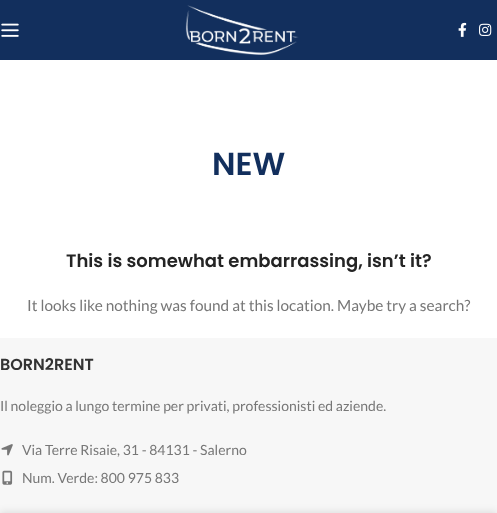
<svg xmlns="http://www.w3.org/2000/svg" width="497" height="513" viewBox="0 0 497 513">
  <defs>
    <filter id="blur1" x="-50%" y="-200%" width="200%" height="500%"><feGaussianBlur stdDeviation="4.5"/></filter>
  </defs>
  <rect width="100%" height="100%" fill="#ffffff"/>
  <rect x="0" y="0" width="497" height="60" fill="#122f5d"/>
  <image x="1" y="23" width="18" height="14" href="img1.png"/>
  <image x="185" y="5" width="114" height="50" href="img2.png"/>
  <image x="458" y="22" width="9" height="15" href="img3.png"/>
  <image x="479" y="23" width="13" height="13" href="img4.png"/>
  <text x="212" y="175" font-family="Poppins" font-size="32" font-weight="600" fill="#122f5d">NEW</text>
  <text x="66" y="267" font-family="Poppins" font-size="18" font-weight="600" fill="#242424">This is somewhat embarrassing, isn’t it?</text>
  <text x="27" y="311" font-family="Lato" font-size="15.4" fill="#777777">It looks like nothing was found at this location. Maybe try a search?</text>
  <rect x="0" y="338" width="497" height="175" fill="#f7f7f7"/>
  <text x="0" y="370" font-family="Poppins" font-size="16" font-weight="600" fill="#333333">BORN2RENT</text>
  <text x="0" y="411" font-family="Lato" font-size="14" fill="#777777">Il noleggio a lungo termine per privati, professionisti ed aziende.</text>
  <image x="1" y="444" width="12" height="12" href="img5.png"/>
  <text x="22" y="455" font-family="Lato" font-size="14" fill="#777777">Via Terre Risaie, 31 - 84131 - Salerno</text>
  <image x="2" y="470" width="11" height="15" href="img6.png"/>
  <text x="22" y="483" font-family="Lato" font-size="14" fill="#777777">Num. Verde: 800 975 833</text>
  <rect x="0" y="513" width="497" height="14" fill="#000000" fill-opacity="0.14" filter="url(#blur1)"/>
</svg>
